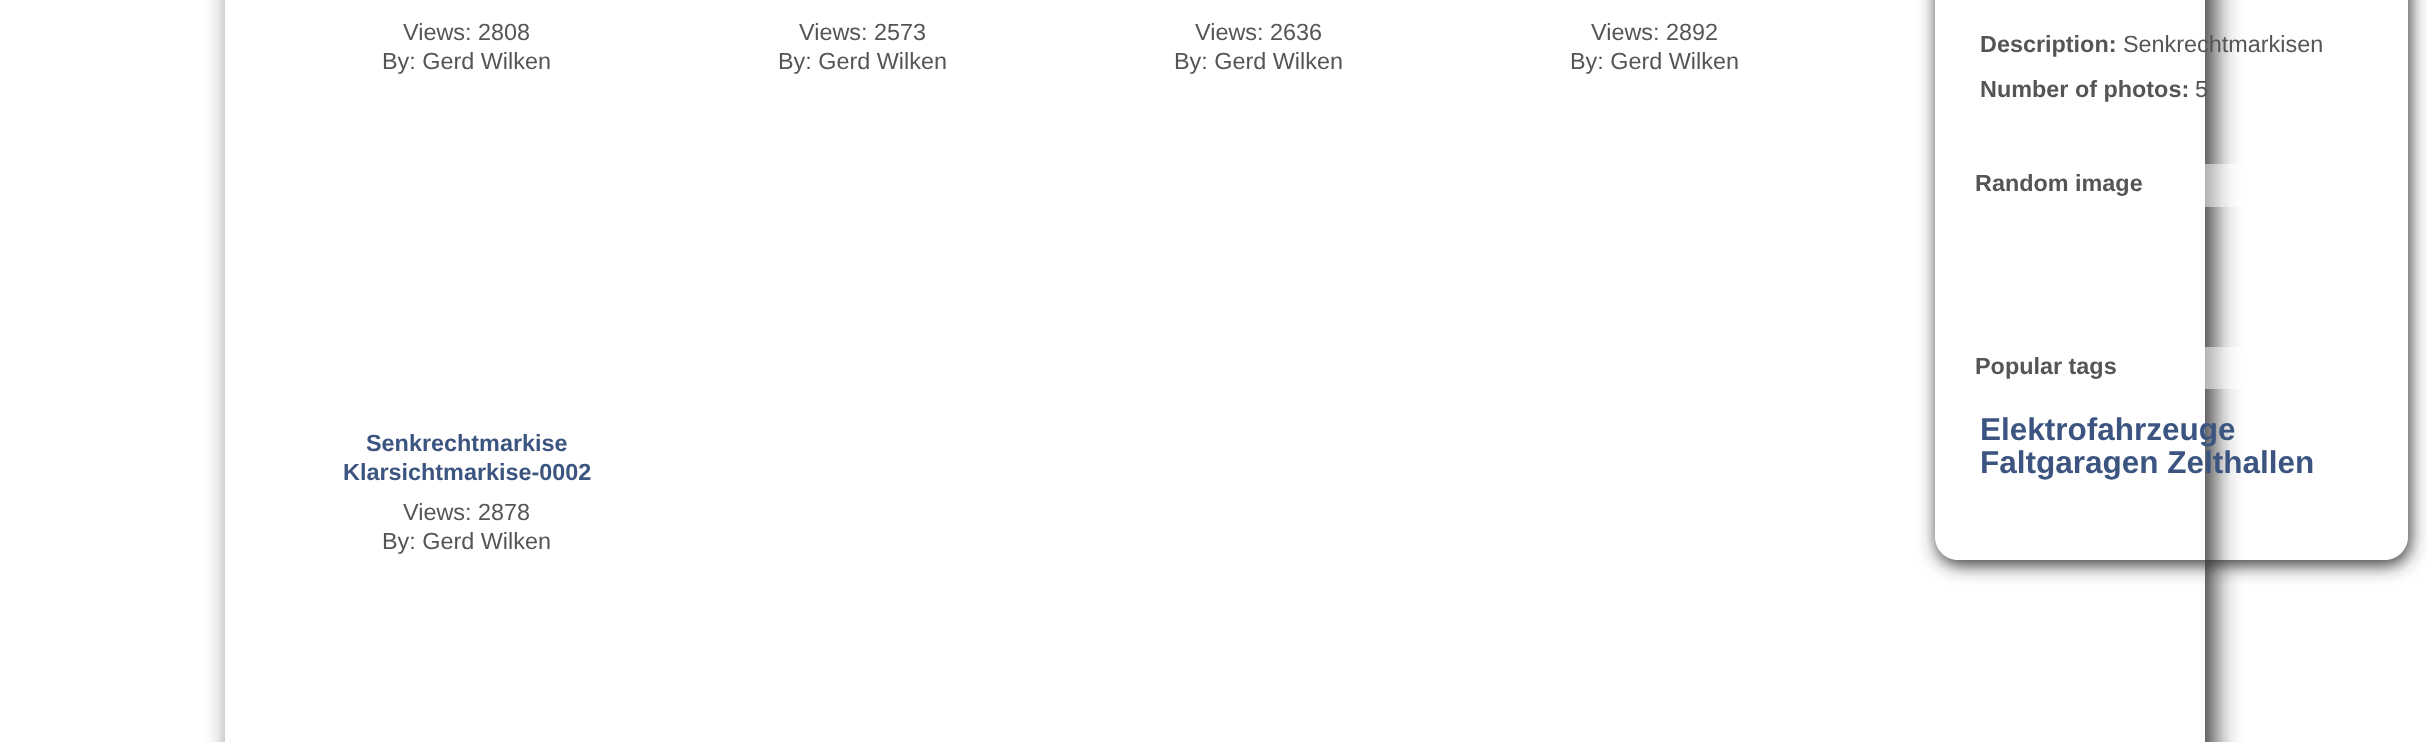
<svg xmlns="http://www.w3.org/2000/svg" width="2427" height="742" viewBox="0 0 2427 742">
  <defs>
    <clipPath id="clip1"><path d="M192 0H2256V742H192ZM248-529H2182C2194.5-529 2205-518.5 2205-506V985C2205 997.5 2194.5 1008 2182 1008H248C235.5 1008 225 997.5 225 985V-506C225-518.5 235.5-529 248-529Z" clip-rule="evenodd"/></clipPath>
    <filter id="blur1" x="-50%" y="-200%" width="200%" height="500%"><feGaussianBlur stdDeviation="13.5"/></filter>
    <clipPath id="clip2"><path d="M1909 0H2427V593H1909ZM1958-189H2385C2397.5-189 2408-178.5 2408-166V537C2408 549.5 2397.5 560 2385 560H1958C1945.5 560 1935 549.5 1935 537V-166C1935-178.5 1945.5-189 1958-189Z" clip-rule="evenodd"/></clipPath>
    <filter id="blur2" x="-50%" y="-200%" width="200%" height="500%"><feGaussianBlur stdDeviation="9"/></filter>
  </defs>
  <rect width="100%" height="100%" fill="#ffffff"/>
  <g clip-path="url(#clip1)">
    <rect x="234" y="-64" width="1980" height="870" rx="23" fill="#333333" filter="url(#blur1)"/>
  </g>
  <text x="403" y="40" font-family="Liberation Sans" font-size="23.4" fill="#555555">Views: 2808</text>
  <text x="382" y="69" font-family="Liberation Sans" font-size="23.4" fill="#555555">By: Gerd Wilken</text>
  <text x="799" y="40" font-family="Liberation Sans" font-size="23.4" fill="#555555">Views: 2573</text>
  <text x="778" y="69" font-family="Liberation Sans" font-size="23.4" fill="#555555">By: Gerd Wilken</text>
  <text x="1195" y="40" font-family="Liberation Sans" font-size="23.4" fill="#555555">Views: 2636</text>
  <text x="1174" y="69" font-family="Liberation Sans" font-size="23.4" fill="#555555">By: Gerd Wilken</text>
  <text x="1591" y="40" font-family="Liberation Sans" font-size="23.4" fill="#555555">Views: 2892</text>
  <text x="1570" y="69" font-family="Liberation Sans" font-size="23.4" fill="#555555">By: Gerd Wilken</text>
  <text x="366" y="451" font-family="Liberation Sans" font-size="23.4" font-weight="bold" fill="#3c5580">Senkrechtmarkise</text>
  <text x="343" y="480" font-family="Liberation Sans" font-size="23.4" font-weight="bold" fill="#3c5580">Klarsichtmarkise-0002</text>
  <text x="403" y="520" font-family="Liberation Sans" font-size="23.4" fill="#555555">Views: 2878</text>
  <text x="382" y="549" font-family="Liberation Sans" font-size="23.4" fill="#555555">By: Gerd Wilken</text>
  <g clip-path="url(#clip2)">
    <rect x="1937" y="-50" width="473" height="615" rx="23" fill="#333333" filter="url(#blur2)"/>
  </g>
  <text x="1980" y="52" font-family="Liberation Sans" font-size="23.4" font-weight="bold" fill="#555555">Description:</text>
  <text x="2123" y="52" font-family="Liberation Sans" font-size="23.4" fill="#555555">Senkrechtmarkisen</text>
  <text x="1980" y="97" font-family="Liberation Sans" font-size="23.4" font-weight="bold" fill="#555555">Number of photos:</text>
  <text x="2195" y="97" font-family="Liberation Sans" font-size="23.4" fill="#555555">5</text>
  <rect x="1958" y="164" width="427" height="43" rx="11" fill="#ffffff" fill-opacity="0.5"/>
  <text x="1975" y="191" font-family="Liberation Sans" font-size="23.4" font-weight="bold" fill="#555555">Random image</text>
  <rect x="1958" y="347" width="427" height="42" rx="11" fill="#ffffff" fill-opacity="0.5"/>
  <text x="1975" y="374" font-family="Liberation Sans" font-size="23.4" font-weight="bold" fill="#555555">Popular tags</text>
  <text x="1980" y="440" font-family="Liberation Sans" font-size="31.5" font-weight="bold" fill="#3c5580">Elektrofahrzeuge</text>
  <text x="1980" y="473" font-family="Liberation Sans" font-size="31.5" font-weight="bold" fill="#3c5580">Faltgaragen Zelthallen</text>
</svg>
